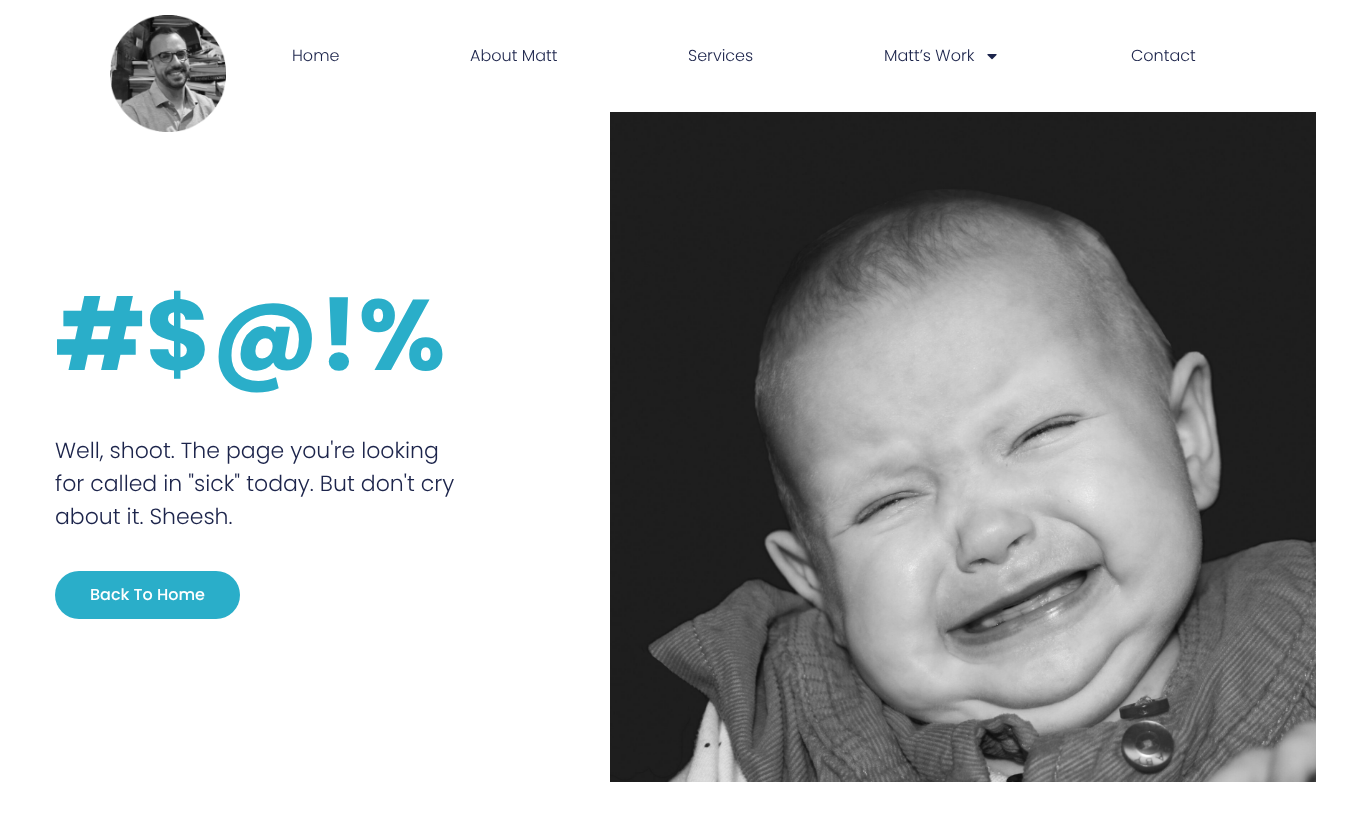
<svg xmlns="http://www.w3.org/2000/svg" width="1371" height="828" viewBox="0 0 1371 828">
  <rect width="100%" height="100%" fill="#ffffff"/>
  <image x="110" y="15" width="116" height="117" href="img1.png"/>
  <text x="292" y="61" font-family="Poppins" font-size="16" font-weight="300" fill="#1c244b">Home</text>
  <text x="470" y="61" font-family="Poppins" font-size="16" font-weight="300" fill="#1c244b">About Matt</text>
  <text x="688" y="61" font-family="Poppins" font-size="16" font-weight="300" fill="#1c244b">Services</text>
  <text x="884" y="61" font-family="Poppins" font-size="16" font-weight="300" fill="#1c244b">Matt’s Work</text>
  <image x="987" y="54" width="10" height="6" href="img2.png"/>
  <text x="1131" y="61" font-family="Poppins" font-size="16" font-weight="300" fill="#1c244b">Contact</text>
  <text x="55" y="370" font-family="Poppins" font-size="100" font-weight="bold" fill="#2aaec9">#$@!%</text>
  <text x="55" y="458" font-family="Poppins" font-size="22" font-weight="300" fill="#1c244b">Well, shoot. The page you're looking</text>
  <text x="55" y="491" font-family="Poppins" font-size="22" font-weight="300" fill="#1c244b">for called in "sick" today. But don't cry</text>
  <text x="55" y="524" font-family="Poppins" font-size="22" font-weight="300" fill="#1c244b">about it. Sheesh.</text>
  <rect x="55" y="571" width="185" height="48" rx="24" fill="#2aaec9"/>
  <text x="90" y="600" font-family="Poppins" font-size="16" font-weight="500" fill="#ffffff">Back To Home</text>
  <image x="610" y="112" width="706" height="670" href="img3.png"/>
</svg>
